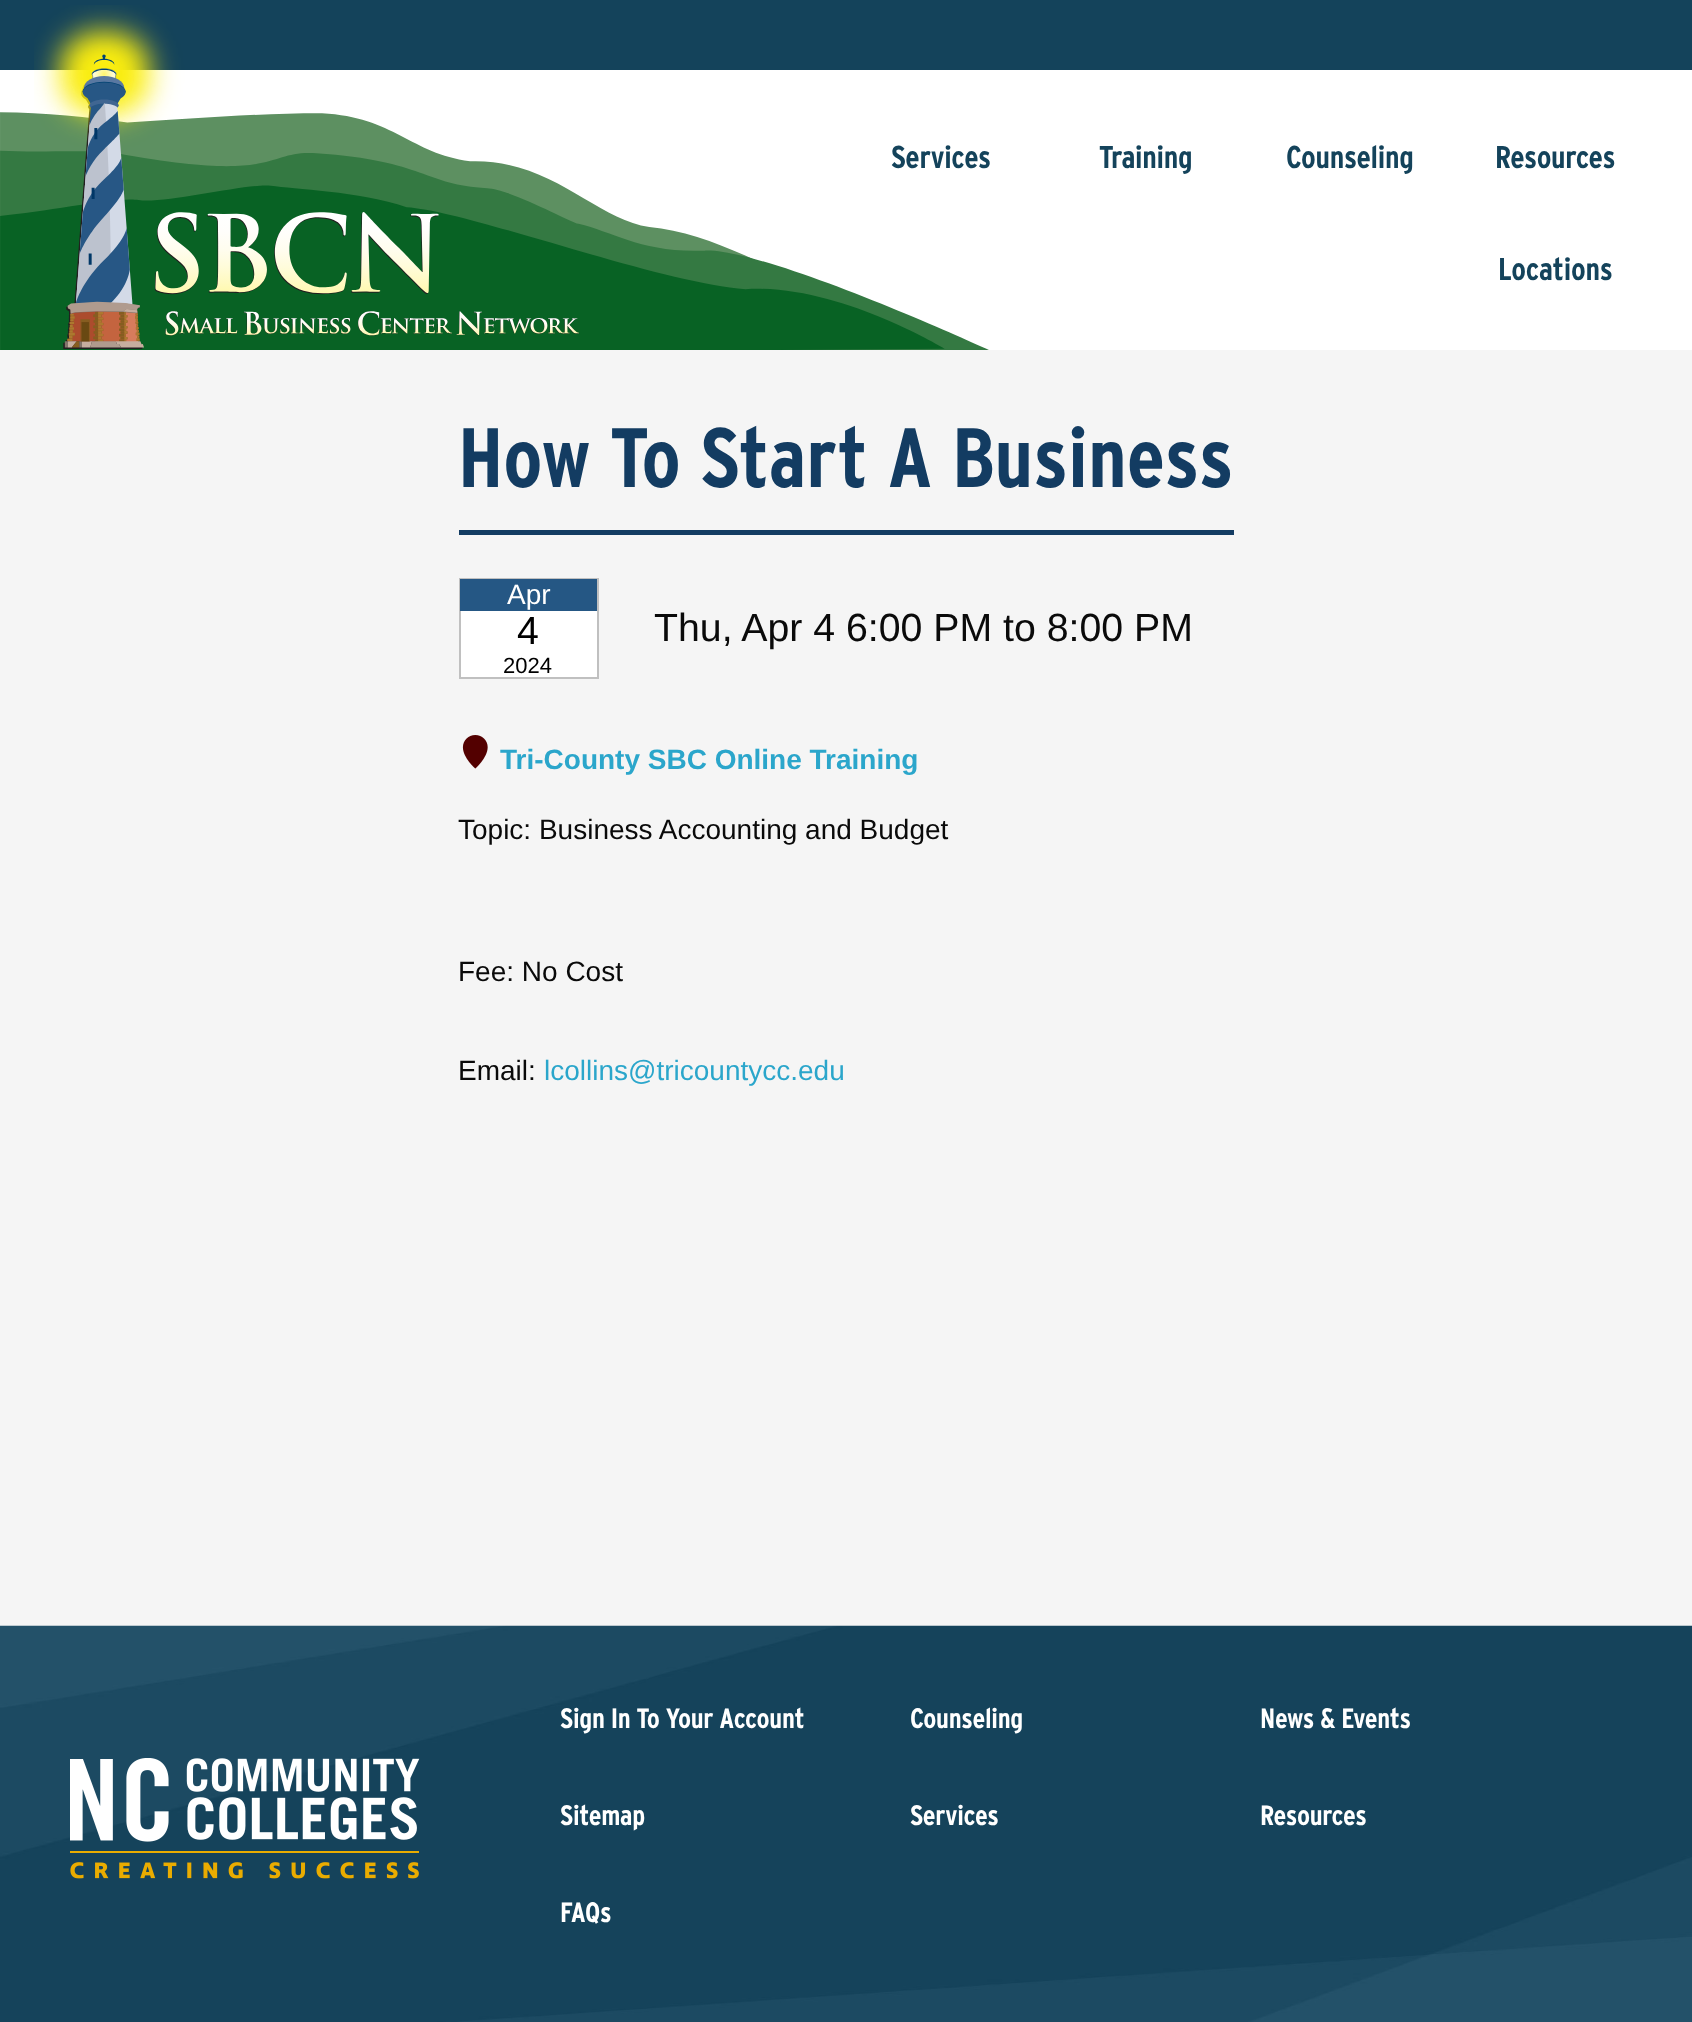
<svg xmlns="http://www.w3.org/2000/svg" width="1692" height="2022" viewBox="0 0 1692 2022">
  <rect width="100%" height="100%" fill="#ffffff"/>
  <image x="0" y="112" width="989" height="238" href="img1.png"/>
  <rect x="0" y="0" width="1692" height="70" fill="#14435b"/>
  <image x="34" y="5" width="545" height="344" href="img2.png"/>
  <text x="891" y="168" font-family="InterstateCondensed" font-size="31.5" font-weight="bold" letter-spacing="-0.3" fill="#14435b">Services</text>
  <text x="1099" y="168" font-family="InterstateCondensed" font-size="31.5" font-weight="bold" letter-spacing="-0.3" fill="#14435b">Training</text>
  <text x="1286" y="168" font-family="InterstateCondensed" font-size="31.5" font-weight="bold" letter-spacing="-0.3" fill="#14435b">Counseling</text>
  <text x="1495" y="168" font-family="InterstateCondensed" font-size="31.5" font-weight="bold" letter-spacing="-0.3" fill="#14435b">Resources</text>
  <text x="1498" y="280" font-family="InterstateCondensed" font-size="31.5" font-weight="bold" letter-spacing="-0.3" fill="#14435b">Locations</text>
  <rect x="0" y="350" width="1692" height="1276" fill="#f5f5f5"/>
  <rect x="459" y="530" width="775" height="5" fill="#133c62"/>
  <text x="458" y="487" font-family="InterstateCondensed" font-size="84" font-weight="bold" fill="#133c62">How To Start A Business</text>
  <rect x="461" y="611" width="136" height="66" fill="#ffffff"/>
  <rect x="460" y="579" width="138" height="99" fill="none" stroke="#c0c0c0" stroke-width="2"/>
  <rect x="460" y="579" width="137" height="32" fill="#255784"/>
  <text x="507" y="604" font-family="Liberation Sans" font-size="28" fill="#ffffff">Apr</text>
  <text x="517" y="644" font-family="Liberation Sans" font-size="39.25" fill="#000000">4</text>
  <text x="503" y="673" font-family="Liberation Sans" font-size="22" fill="#000000">2024</text>
  <text x="654" y="641" font-family="Liberation Sans" font-size="39.25" fill="#0a0a0a">Thu, Apr 4 6:00 PM to 8:00 PM</text>
  <image x="462" y="735" width="26" height="34" href="img3.png"/>
  <text x="500" y="769" font-family="Liberation Sans" font-size="28" font-weight="bold" fill="#2ba6cb">Tri-County SBC Online Training</text>
  <text x="458" y="839" font-family="Liberation Sans" font-size="28" fill="#0a0a0a">Topic: Business Accounting and Budget</text>
  <text x="458" y="981" font-family="Liberation Sans" font-size="28" fill="#0a0a0a">Fee: No Cost</text>
  <text x="458" y="1080" font-family="Liberation Sans" font-size="28" fill="#0a0a0a">Email:</text>
  <text x="544" y="1080" font-family="Liberation Sans" font-size="28" fill="#2ba6cb">lcollins@tricountycc.edu</text>
  <image x="0" y="1625" width="1692" height="397" href="img4.png"/>
  <image x="70" y="1758" width="350" height="121" href="img5.png"/>
  <text x="560" y="1728" font-family="InterstateCondensed" font-size="28" font-weight="bold" letter-spacing="-0.3" fill="#ffffff">Sign In To Your Account</text>
  <text x="910" y="1728" font-family="InterstateCondensed" font-size="28" font-weight="bold" letter-spacing="-0.3" fill="#ffffff">Counseling</text>
  <text x="1260" y="1728" font-family="InterstateCondensed" font-size="28" font-weight="bold" letter-spacing="-0.3" fill="#ffffff">News &amp; Events</text>
  <text x="560" y="1825" font-family="InterstateCondensed" font-size="28" font-weight="bold" letter-spacing="-0.3" fill="#ffffff">Sitemap</text>
  <text x="910" y="1825" font-family="InterstateCondensed" font-size="28" font-weight="bold" letter-spacing="-0.3" fill="#ffffff">Services</text>
  <text x="1260" y="1825" font-family="InterstateCondensed" font-size="28" font-weight="bold" letter-spacing="-0.3" fill="#ffffff">Resources</text>
  <text x="560" y="1922" font-family="InterstateCondensed" font-size="28" font-weight="bold" letter-spacing="-0.3" fill="#ffffff">FAQs</text>
</svg>
